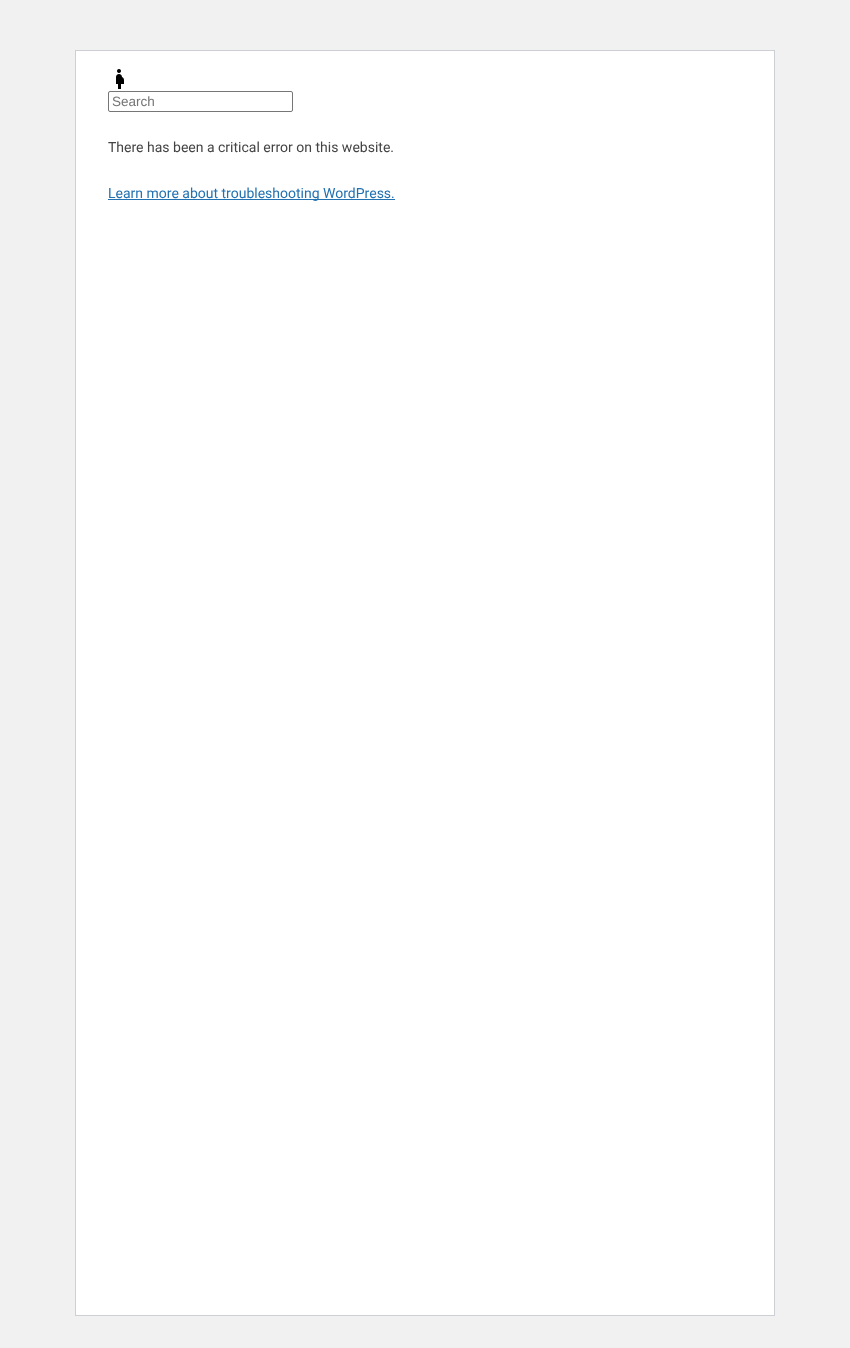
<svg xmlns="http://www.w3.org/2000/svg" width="850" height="1348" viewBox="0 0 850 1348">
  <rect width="100%" height="100%" fill="#f1f1f1"/>
  <rect x="75.5" y="50.5" width="699" height="1265" fill="#ffffff" stroke="#ccd0d4"/>
  <image x="116" y="69" width="8" height="20" href="img1.png"/>
  <rect x="108.5" y="91.5" width="184" height="20" rx="1.5" fill="none" stroke="#767676"/>
  <text x="112" y="106" font-family="Liberation Sans" font-size="13.5" fill="#757575">Search</text>
  <text x="108" y="152" font-family="Roboto" font-size="14" fill="#444444">There has been a critical error on this website.</text>
  <rect x="108" y="199" width="287" height="1" fill="#2271b1"/>
  <text x="108" y="198" font-family="Roboto" font-size="14" fill="#2271b1">Learn more about troubleshooting WordPress.</text>
</svg>
